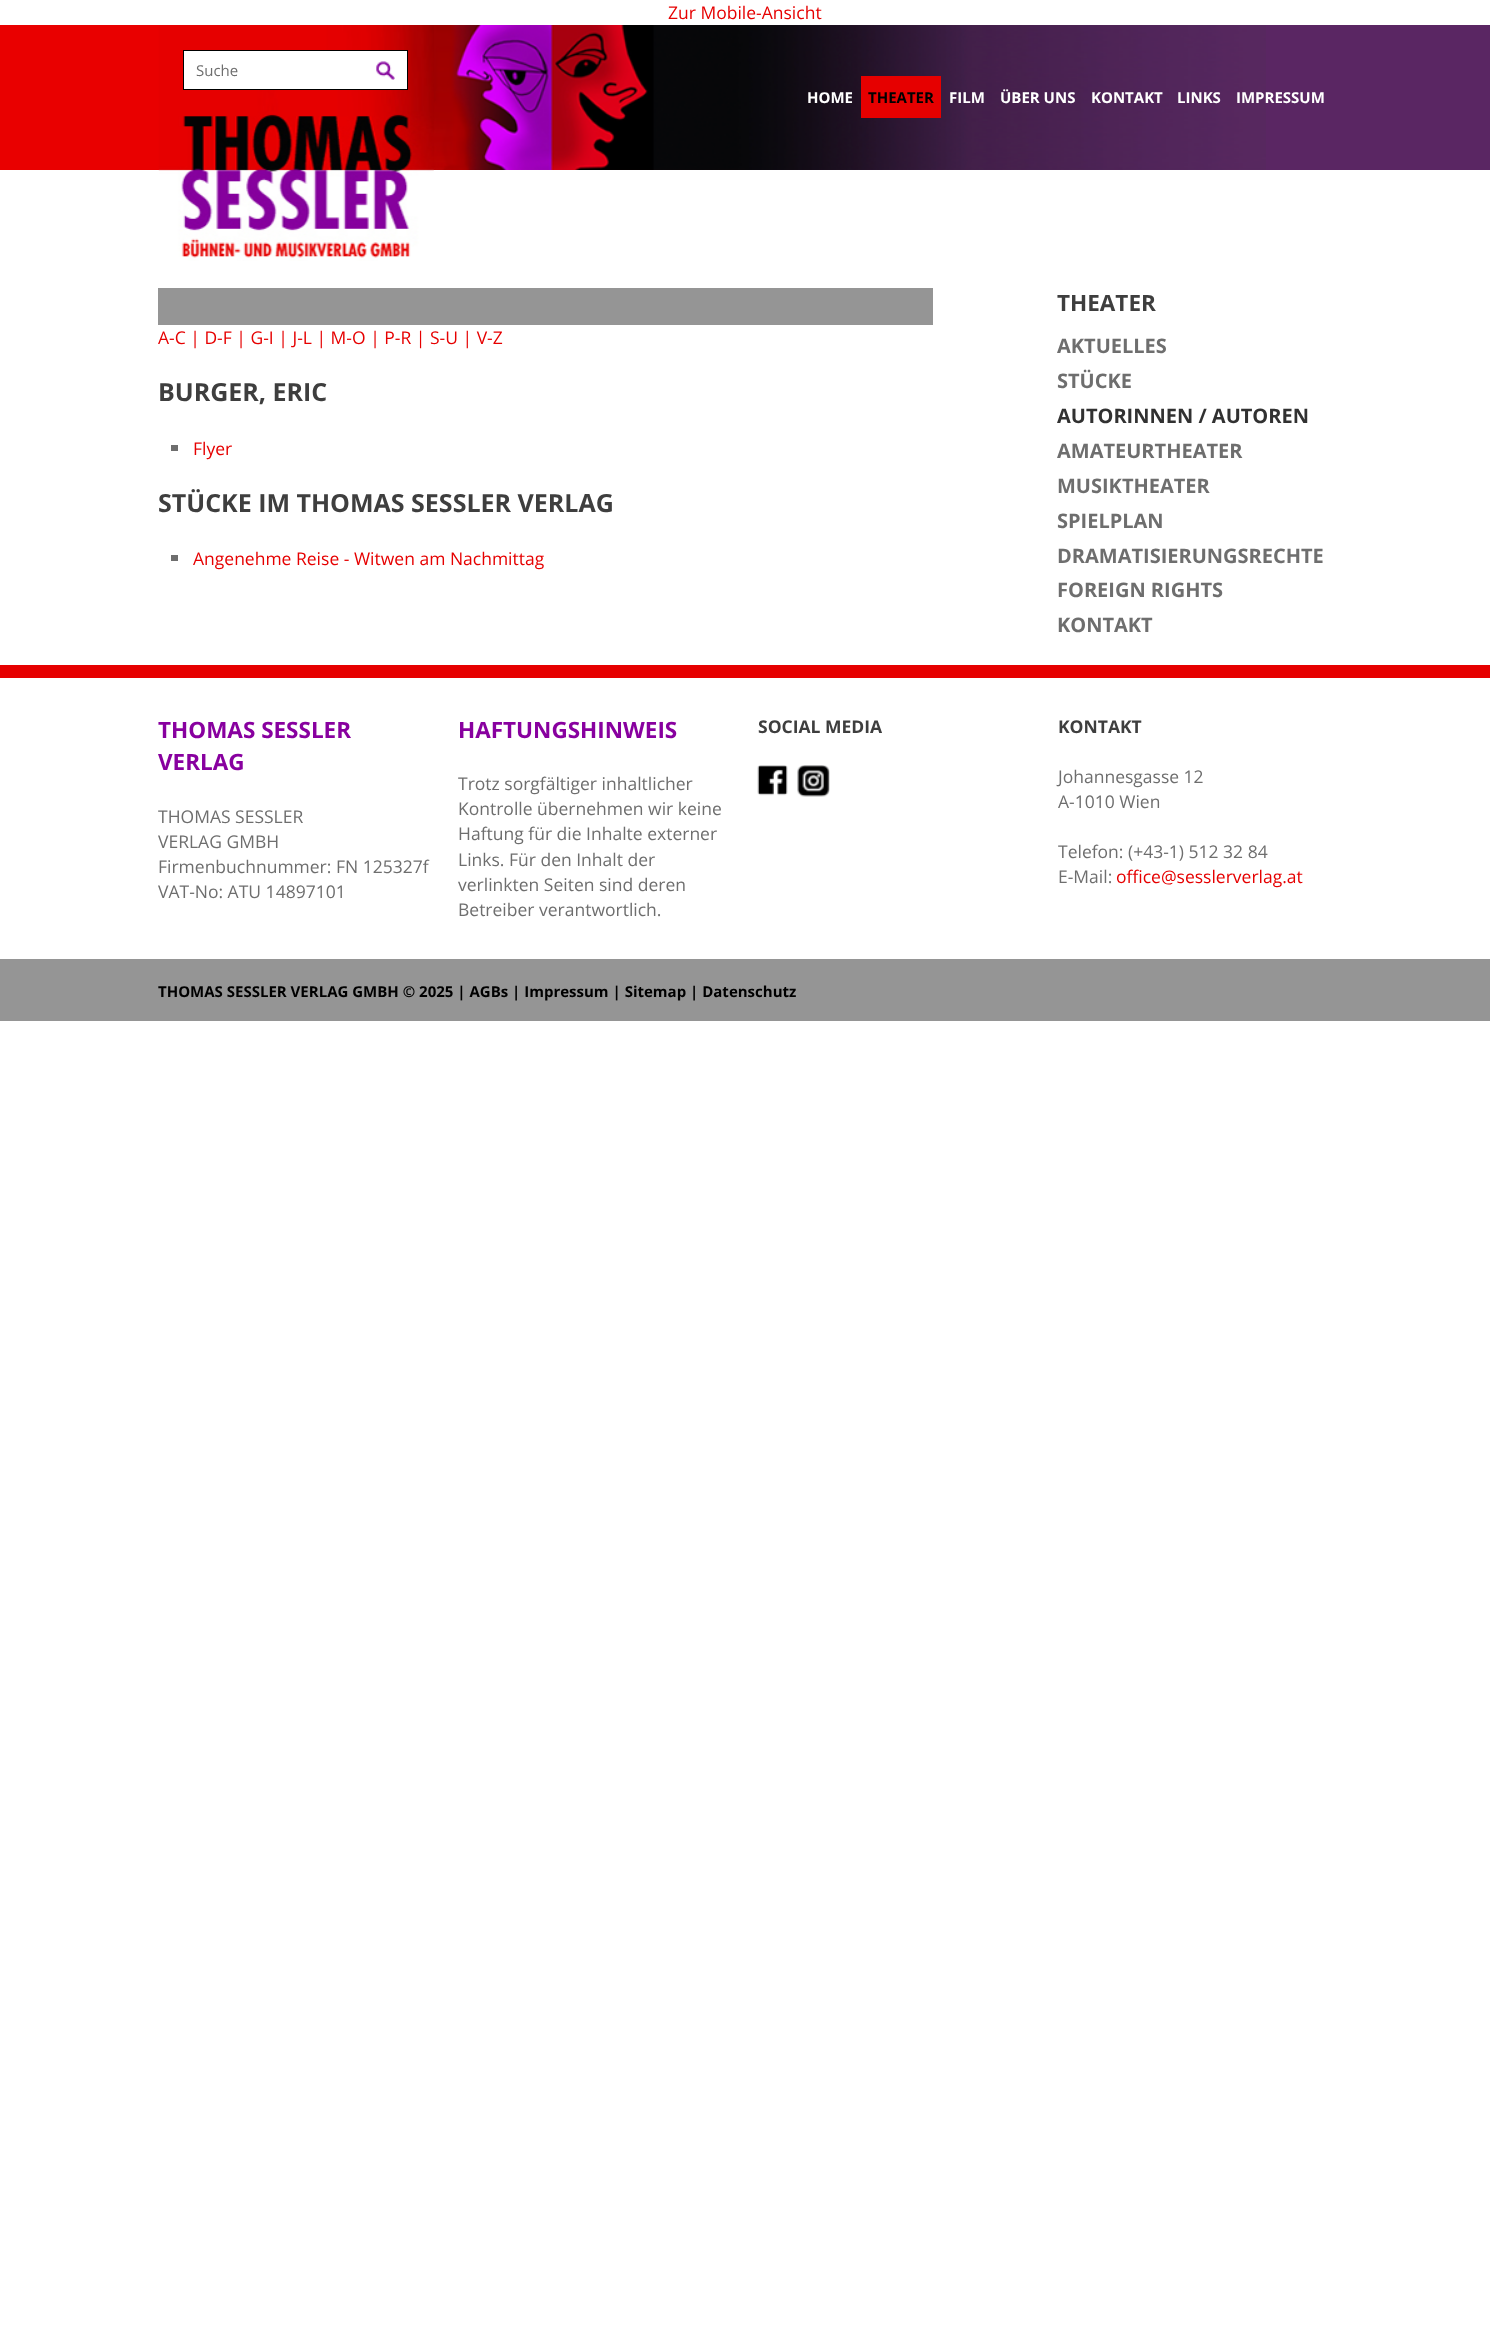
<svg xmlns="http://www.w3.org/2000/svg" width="1490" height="2333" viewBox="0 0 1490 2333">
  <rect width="100%" height="100%" fill="#ffffff"/>
  <text x="668" y="19" font-family="Open Sans" font-size="17.5" fill="#e60000">Zur Mobile-Ansicht</text>
  <image x="0" y="25" width="1490" height="145" href="img1.png"/>
  <image x="433" y="25" width="833" height="145" href="img2.png"/>
  <image x="158" y="25" width="276" height="236" href="img3.png"/>
  <rect x="183.5" y="50.5" width="224" height="39" fill="#ffffff" stroke="#000000"/>
  <text x="196" y="76" font-family="Open Sans" font-size="15" fill="#6e6e6e">Suche</text>
  <image x="376" y="61" width="19" height="19" href="img4.png"/>
  <text x="807" y="103" font-family="Open Sans" font-size="15" font-weight="bold" fill="#ffffff">HOME</text>
  <rect x="861" y="76" width="80" height="42" fill="#e60000"/>
  <text x="868" y="103" font-family="Open Sans" font-size="15" font-weight="bold" fill="#000000">THEATER</text>
  <text x="949" y="103" font-family="Open Sans" font-size="15" font-weight="bold" fill="#ffffff">FILM</text>
  <text x="1000" y="103" font-family="Open Sans" font-size="15" font-weight="bold" fill="#ffffff">ÜBER UNS</text>
  <text x="1091" y="103" font-family="Open Sans" font-size="15" font-weight="bold" fill="#ffffff">KONTAKT</text>
  <text x="1177" y="103" font-family="Open Sans" font-size="15" font-weight="bold" fill="#ffffff">LINKS</text>
  <text x="1236" y="103" font-family="Open Sans" font-size="15" font-weight="bold" fill="#ffffff">IMPRESSUM</text>
  <rect x="158" y="288" width="775" height="37" fill="#959595"/>
  <text x="158" y="344" font-family="Open Sans" font-size="17.5" fill="#e60000">A-C | D-F | G-I | J-L | M-O | P-R | S-U | V-Z</text>
  <text x="158" y="401" font-family="Open Sans" font-size="25" font-weight="bold" fill="#3e3e3e">BURGER, ERIC</text>
  <rect x="171" y="445" width="7" height="6" fill="#6e6e6e"/>
  <text x="193" y="455" font-family="Open Sans" font-size="17.5" fill="#e60000">Flyer</text>
  <text x="158" y="512" font-family="Open Sans" font-size="25" font-weight="bold" fill="#3e3e3e">STÜCKE IM THOMAS SESSLER VERLAG</text>
  <rect x="171" y="555" width="7" height="6" fill="#6e6e6e"/>
  <text x="193" y="565" font-family="Open Sans" font-size="17.5" fill="#e60000">Angenehme Reise - Witwen am Nachmittag</text>
  <text x="1057" y="311" font-family="Open Sans" font-size="22.5" font-weight="bold" fill="#3e3e3e">THEATER</text>
  <text x="1057" y="353" font-family="Open Sans" font-size="20" font-weight="bold" fill="#6e6e6e">AKTUELLES</text>
  <text x="1057" y="388" font-family="Open Sans" font-size="20" font-weight="bold" fill="#6e6e6e">STÜCKE</text>
  <text x="1057" y="423" font-family="Open Sans" font-size="20" font-weight="bold" fill="#313131">AUTORINNEN / AUTOREN</text>
  <text x="1057" y="458" font-family="Open Sans" font-size="20" font-weight="bold" fill="#6e6e6e">AMATEURTHEATER</text>
  <text x="1057" y="493" font-family="Open Sans" font-size="20" font-weight="bold" fill="#6e6e6e">MUSIKTHEATER</text>
  <text x="1057" y="528" font-family="Open Sans" font-size="20" font-weight="bold" fill="#6e6e6e">SPIELPLAN</text>
  <text x="1057" y="563" font-family="Open Sans" font-size="20" font-weight="bold" fill="#6e6e6e">DRAMATISIERUNGSRECHTE</text>
  <text x="1057" y="597" font-family="Open Sans" font-size="20" font-weight="bold" fill="#6e6e6e">FOREIGN RIGHTS</text>
  <text x="1057" y="632" font-family="Open Sans" font-size="20" font-weight="bold" fill="#6e6e6e">KONTAKT</text>
  <rect x="0" y="665" width="1490" height="13" fill="#e60000"/>
  <text x="158" y="738" font-family="Open Sans" font-size="22.5" font-weight="bold" fill="#88009f">THOMAS SESSLER</text>
  <text x="158" y="770" font-family="Open Sans" font-size="22.5" font-weight="bold" fill="#88009f">VERLAG</text>
  <text x="158" y="823" font-family="Open Sans" font-size="17.5" fill="#6e6e6e">THOMAS SESSLER</text>
  <text x="158" y="848" font-family="Open Sans" font-size="17.5" fill="#6e6e6e">VERLAG GMBH</text>
  <text x="158" y="873" font-family="Open Sans" font-size="17.5" fill="#6e6e6e">Firmenbuchnummer: FN 125327f</text>
  <text x="158" y="898" font-family="Open Sans" font-size="17.5" fill="#6e6e6e">VAT-No: ATU 14897101</text>
  <text x="458" y="738" font-family="Open Sans" font-size="22.5" font-weight="bold" fill="#88009f">HAFTUNGSHINWEIS</text>
  <text x="458" y="790" font-family="Open Sans" font-size="17.5" fill="#6e6e6e">Trotz sorgfältiger inhaltlicher</text>
  <text x="458" y="815" font-family="Open Sans" font-size="17.5" fill="#6e6e6e">Kontrolle übernehmen wir keine</text>
  <text x="458" y="840" font-family="Open Sans" font-size="17.5" fill="#6e6e6e">Haftung für die Inhalte externer</text>
  <text x="458" y="866" font-family="Open Sans" font-size="17.5" fill="#6e6e6e">Links. Für den Inhalt der</text>
  <text x="458" y="891" font-family="Open Sans" font-size="17.5" fill="#6e6e6e">verlinkten Seiten sind deren</text>
  <text x="458" y="916" font-family="Open Sans" font-size="17.5" fill="#6e6e6e">Betreiber verantwortlich.</text>
  <text x="758" y="733" font-family="Open Sans" font-size="17.5" font-weight="bold" fill="#3e3e3e">SOCIAL MEDIA</text>
  <image x="757" y="765" width="31" height="31" href="img5.png"/>
  <image x="797" y="765" width="33" height="32" href="img6.png"/>
  <text x="1058" y="733" font-family="Open Sans" font-size="17.5" font-weight="bold" fill="#3e3e3e">KONTAKT</text>
  <text x="1058" y="783" font-family="Open Sans" font-size="17.5" fill="#6e6e6e">Johannesgasse 12</text>
  <text x="1058" y="808" font-family="Open Sans" font-size="17.5" fill="#6e6e6e">A-1010 Wien</text>
  <text x="1058" y="858" font-family="Open Sans" font-size="17.5" fill="#6e6e6e">Telefon: (+43-1) 512 32 84</text>
  <text x="1058" y="883" font-family="Open Sans" font-size="17.5" fill="#6e6e6e">E-Mail:</text>
  <text x="1116" y="883" font-family="Open Sans" font-size="17.5" fill="#e60000">office@sesslerverlag.at</text>
  <rect x="0" y="959" width="1490" height="62" fill="#959595"/>
  <text x="158" y="997" font-family="Open Sans" font-size="15" font-weight="bold" fill="#000000">THOMAS SESSLER VERLAG GMBH © 2025 | AGBs | Impressum | Sitemap | Datenschutz</text>
</svg>
